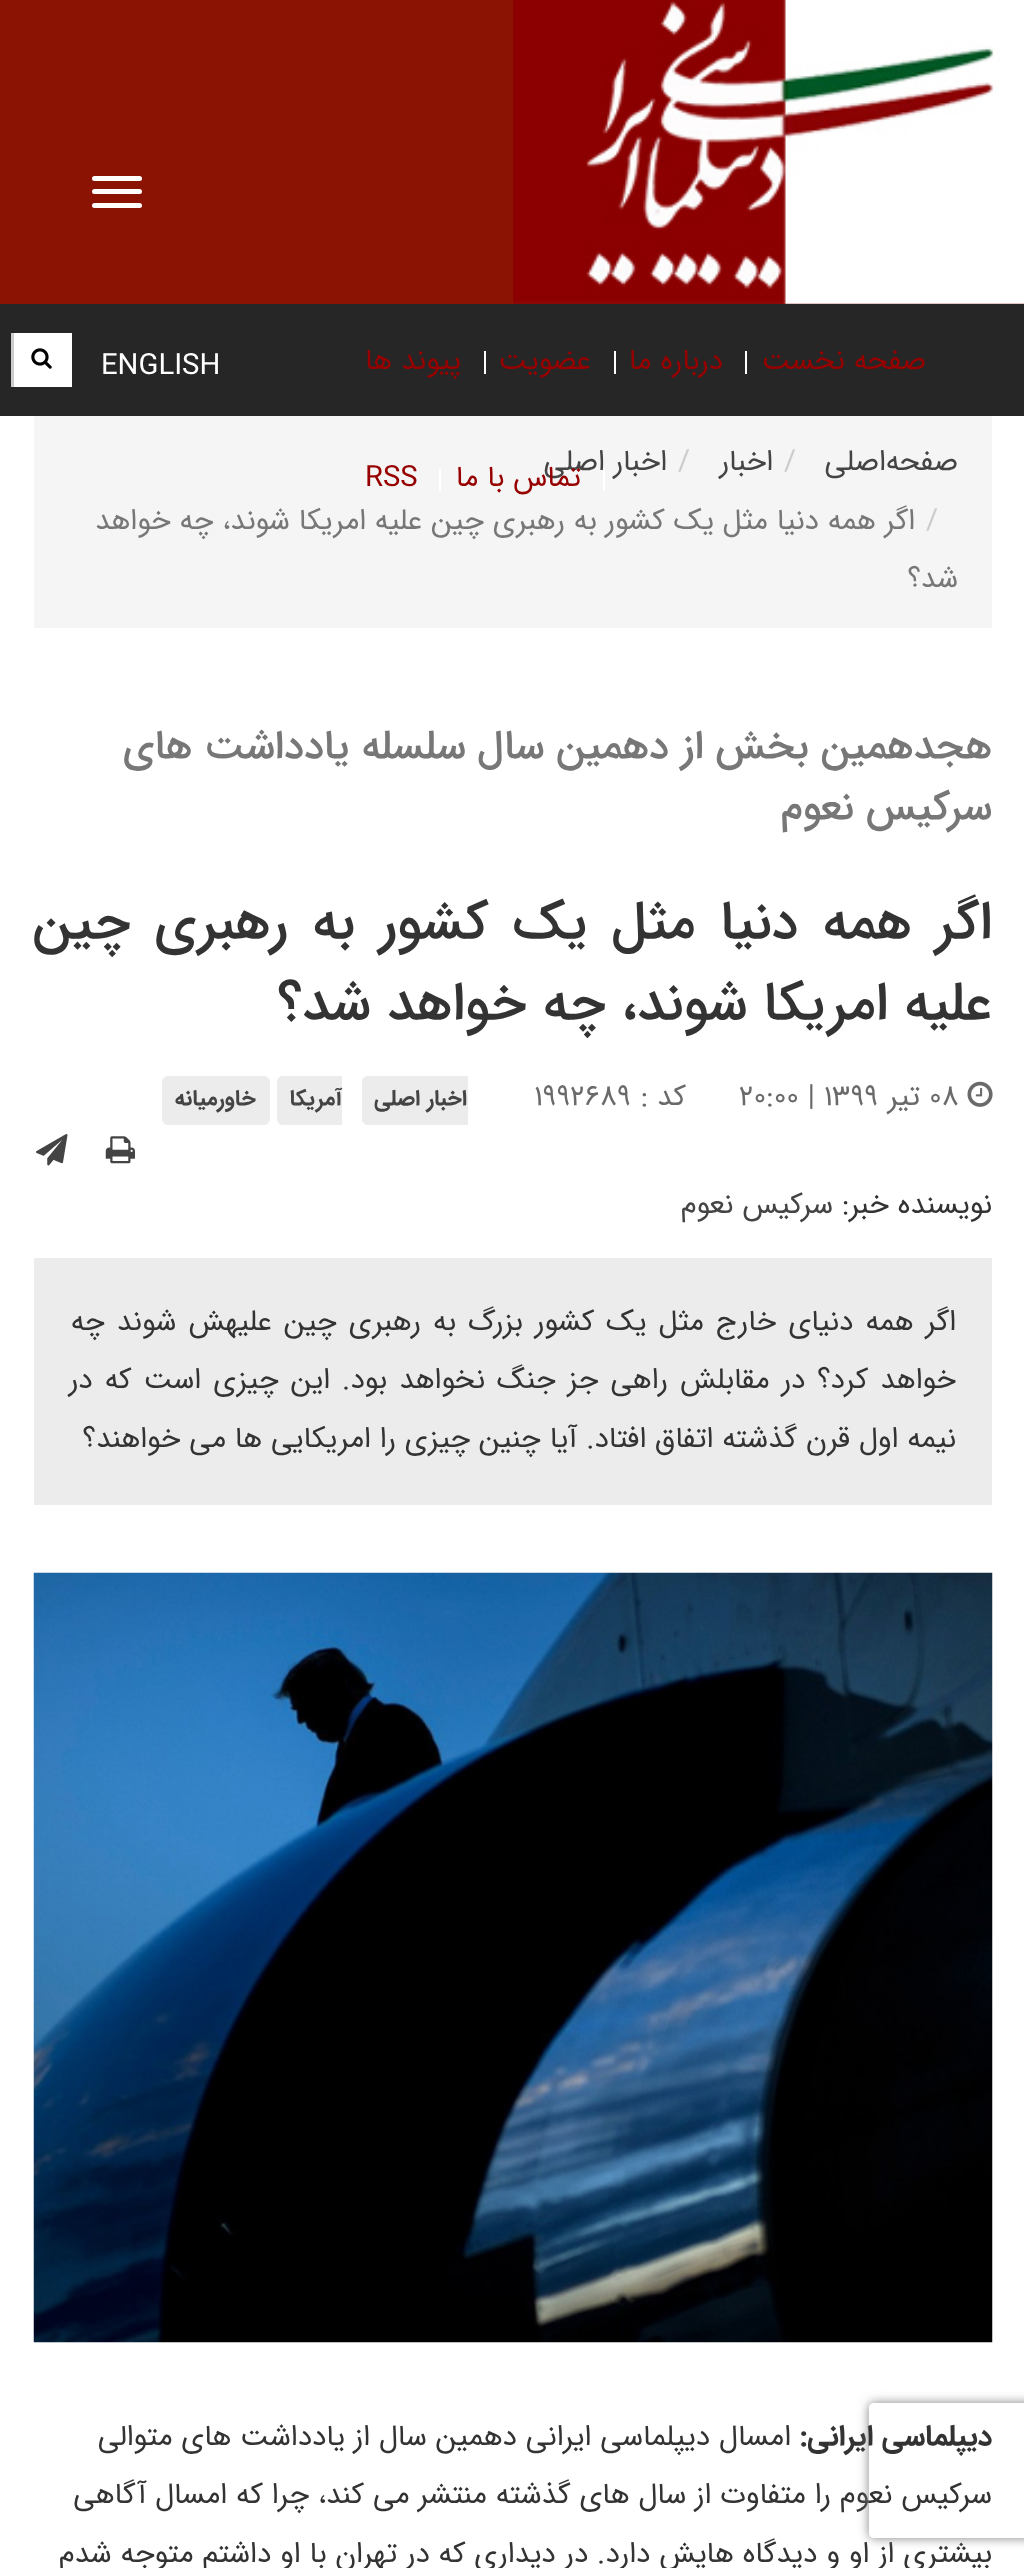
<svg xmlns="http://www.w3.org/2000/svg" width="1024" height="2568" viewBox="0 0 1024 2568">
  <defs>
    <clipPath id="clip1"><path d="M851 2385H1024V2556H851ZM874 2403H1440C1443 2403 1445 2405 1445 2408V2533C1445 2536 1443 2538 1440 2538H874C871 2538 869 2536 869 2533V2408C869 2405 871 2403 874 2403Z" clip-rule="evenodd"/></clipPath>
    <filter id="blur1" x="-50%" y="-200%" width="200%" height="500%"><feGaussianBlur stdDeviation="5.5"/></filter>
  </defs>
  <rect width="100%" height="100%" fill="#ffffff"/>
  <rect x="0" y="0" width="1024" height="304" fill="#8b1304"/>
  <image x="513" y="0" width="511" height="304" href="img1.png"/>
  <rect x="92" y="176" width="50" height="5" rx="2.5" fill="#ffffff"/>
  <rect x="92" y="189" width="50" height="5" rx="2.5" fill="#ffffff"/>
  <rect x="92" y="203" width="50" height="5" rx="2.5" fill="#ffffff"/>
  <rect x="0" y="304" width="1024" height="112" fill="#262626"/>
  <text x="926" y="369" font-family="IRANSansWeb" font-size="29.25" direction="rtl" fill="#970000">صفحه نخست</text>
  <rect x="745" y="351" width="2" height="23" fill="#ffffff"/>
  <text x="723" y="369" font-family="IRANSansWeb" font-size="29.25" direction="rtl" fill="#970000">درباره ما</text>
  <rect x="614" y="351" width="2" height="23" fill="#ffffff"/>
  <text x="591" y="369" font-family="IRANSansWeb" font-size="29.25" direction="rtl" fill="#970000">عضویت</text>
  <rect x="484" y="351" width="2" height="23" fill="#ffffff"/>
  <text x="461" y="369" font-family="IRANSansWeb" font-size="29.25" direction="rtl" fill="#970000">پیوند ها</text>
  <rect x="34" y="416" width="958" height="212" fill="#f5f5f5"/>
  <text x="667" y="470" font-family="IRANSansWeb" font-size="29.25" direction="rtl" fill="#444444">اخبار اصلی</text>
  <rect x="603" y="468" width="2" height="23" fill="#ffffff"/>
  <text x="581" y="486" font-family="IRANSansWeb" font-size="29.25" direction="rtl" fill="#970000">تماس با ما</text>
  <rect x="439" y="468" width="2" height="23" fill="#ffffff"/>
  <text x="365" y="486" font-family="IRANSansWeb" font-size="29.25" fill="#970000">RSS</text>
  <text x="101" y="374" font-family="IRANSansWeb" font-size="29.25" fill="#ffffff">ENGLISH</text>
  <rect x="14" y="333" width="58" height="54" fill="#ffffff"/>
  <image x="31" y="348" width="21" height="21" href="img2.png"/>
  <rect x="11" y="333" width="3" height="54" fill="#cccccc"/>
  <text x="958" y="470" font-family="IRANSansWeb" font-size="29.25" direction="rtl" fill="#444444">صفحه‌اصلی</text>
  <text x="784" y="470" font-family="IRANSansWeb" font-size="29.25" fill="#cccccc">/</text>
  <text x="773" y="470" font-family="IRANSansWeb" font-size="29.25" direction="rtl" fill="#444444">اخبار</text>
  <text x="678" y="470" font-family="IRANSansWeb" font-size="29.25" fill="#cccccc">/</text>
  <text x="926" y="529" font-family="IRANSansWeb" font-size="29.25" fill="#cccccc">/</text>
  <text x="915" y="529" font-family="IRANSansWeb" font-size="29.25" direction="rtl" fill="#777777">اگر همه دنیا مثل یک کشور به رهبری چین علیه امریکا شوند، چه خواهد</text>
  <text x="958" y="587" font-family="IRANSansWeb" font-size="29.25" direction="rtl" fill="#777777">شد؟</text>
  <text x="992" y="758" font-family="IRANSansWeb" font-size="40.5" font-weight="500" direction="rtl" fill="#777777">هجدهمین بخش از دهمین سال سلسله یادداشت های</text>
  <text x="992" y="819" font-family="IRANSansWeb" font-size="40.5" font-weight="500" direction="rtl" fill="#777777">سرکیس نعوم</text>
  <text x="992" y="938" word-spacing="8.25" font-family="IRANSansWeb" font-size="54" font-weight="500" direction="rtl" fill="#333333">اگر همه دنیا مثل یک کشور به رهبری چین</text>
  <text x="992" y="1019" font-family="IRANSansWeb" font-size="54" font-weight="500" direction="rtl" fill="#333333">علیه امریکا شوند، چه خواهد شد؟</text>
  <image x="967" y="1081" width="26" height="26" href="img3.png"/>
  <text x="929" y="1105" font-family="IRANSansWeb" font-size="29.25" fill="#6a6a6a">۰۸</text>
  <text x="920" y="1105" font-family="IRANSansWeb" font-size="29.25" direction="rtl" fill="#6a6a6a">تیر</text>
  <text x="739" y="1105" font-family="IRANSansWeb" font-size="29.25" fill="#6a6a6a">۲۰:۰۰ | ۱۳۹۹</text>
  <text x="686" y="1105" font-family="IRANSansWeb" font-size="29.25" direction="rtl" fill="#6a6a6a">کد :</text>
  <text x="534" y="1105" font-family="IRANSansWeb" font-size="29.25" fill="#6a6a6a">۱۹۹۲۶۸۹</text>
  <path d="M368 1076H468V1125H368C364.5 1125 362 1122.5 362 1119V1082C362 1078.5 364.5 1076 368 1076Z" fill="#ececec"/>
  <text x="467" y="1105" font-family="IRANSansWeb" font-size="22" font-weight="bold" direction="rtl" fill="#444444">اخبار اصلی</text>
  <path d="M283 1076H342V1125H283C279.5 1125 277 1122.5 277 1119V1082C277 1078.5 279.5 1076 283 1076Z" fill="#ececec"/>
  <text x="342" y="1105" font-family="IRANSansWeb" font-size="22" font-weight="bold" direction="rtl" fill="#444444">آمریکا</text>
  <rect x="162" y="1076" width="108" height="49" rx="6" fill="#ececec"/>
  <text x="256" y="1105" font-family="IRANSansWeb" font-size="22" font-weight="bold" direction="rtl" fill="#444444">خاورمیانه</text>
  <image x="105" y="1136" width="30" height="28" href="img4.png"/>
  <image x="36" y="1134" width="32" height="32" href="img5.png"/>
  <text x="992" y="1213" font-family="IRANSansWeb" font-size="29.25" direction="rtl" fill="#333333">نویسنده خبر:</text>
  <text x="833" y="1213" font-family="IRANSansWeb" font-size="29.25" direction="rtl" fill="#444444">سرکیس نعوم</text>
  <rect x="34" y="1258" width="958" height="247" fill="#ececec"/>
  <text x="956" y="1330" word-spacing="3.25" font-family="IRANSansWeb" font-size="29.25" direction="rtl" fill="#333333">اگر همه دنیای خارج مثل یک کشور بزرگ به رهبری چین علیهش شوند چه</text>
  <text x="956" y="1388" word-spacing="3.25" font-family="IRANSansWeb" font-size="29.25" direction="rtl" fill="#333333">خواهد کرد؟ در مقابلش راهی جز جنگ نخواهد بود. این چیزی است که در</text>
  <text x="956" y="1447" font-family="IRANSansWeb" font-size="29.25" direction="rtl" fill="#333333">نیمه اول قرن گذشته اتفاق افتاد. آیا چنین چیزی را امریکایی ها می خواهند؟</text>
  <image x="33" y="1572" width="960" height="771" href="img6.png"/>
  <text x="992" y="2445" font-family="IRANSansWeb" font-size="29.25" font-weight="bold" direction="rtl" fill="#333333">دیپلماسی ایرانی:</text>
  <text x="791" y="2445" font-family="IRANSansWeb" font-size="29.25" direction="rtl" fill="#333333">امسال دیپلماسی ایرانی دهمین سال از یادداشت های متوالی</text>
  <text x="992" y="2503" font-family="IRANSansWeb" font-size="29.25" direction="rtl" fill="#333333">سرکیس نعوم را متفاوت از سال های گذشته منتشر می کند، چرا که امسال آگاهی</text>
  <text x="992" y="2562" font-family="IRANSansWeb" font-size="29.25" direction="rtl" fill="#333333">بیشتری از او و دیدگاه هایش دارد. در دیداری که در تهران با او داشتم متوجه شدم</text>
  <g clip-path="url(#clip1)">
    <rect x="869" y="2403" width="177" height="135" rx="5" fill="#808080" filter="url(#blur1)"/>
  </g>
</svg>
